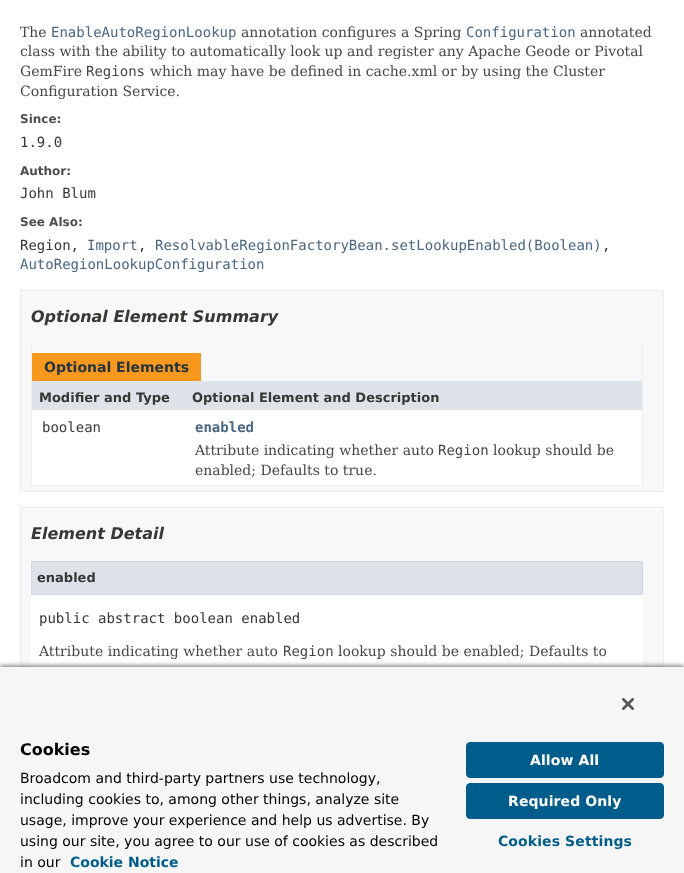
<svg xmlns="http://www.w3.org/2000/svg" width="684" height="873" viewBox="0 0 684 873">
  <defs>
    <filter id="blur1" x="-50%" y="-200%" width="200%" height="500%"><feGaussianBlur stdDeviation="2"/></filter>
  </defs>
  <rect width="100%" height="100%" fill="#ffffff"/>
  <text x="20" y="37" font-family="DejaVu Serif" font-size="14" fill="#474747">The</text>
  <text x="51" y="37" font-family="DejaVu Sans Mono" font-size="14" fill="#4a6782">EnableAutoRegionLookup</text>
  <text x="241" y="37" font-family="DejaVu Serif" font-size="14" fill="#474747">annotation configures a Spring</text>
  <text x="466" y="37" font-family="DejaVu Sans Mono" font-size="14" fill="#4a6782">Configuration</text>
  <text x="580" y="37" font-family="DejaVu Serif" font-size="14" fill="#474747">annotated</text>
  <text x="20" y="56" font-family="DejaVu Serif" font-size="14" fill="#474747">class with the ability to automatically look up and register any Apache Geode or Pivotal</text>
  <text x="20" y="76" font-family="DejaVu Serif" font-size="14" fill="#474747">GemFire</text>
  <text x="86" y="76" font-family="DejaVu Sans Mono" font-size="14" fill="#474747">Regions</text>
  <text x="150" y="76" font-family="DejaVu Serif" font-size="14" fill="#474747">which may have be defined in cache.xml or by using the Cluster</text>
  <text x="20" y="96" font-family="DejaVu Serif" font-size="14" fill="#474747">Configuration Service.</text>
  <text x="20" y="123" font-family="DejaVu Sans" font-size="12" font-weight="bold" fill="#4e4e4e">Since:</text>
  <text x="20" y="147" font-family="DejaVu Sans Mono" font-size="14" fill="#353833">1.9.0</text>
  <text x="20" y="175" font-family="DejaVu Sans" font-size="12" font-weight="bold" fill="#4e4e4e">Author:</text>
  <text x="20" y="198" font-family="DejaVu Sans Mono" font-size="14" fill="#353833">John Blum</text>
  <text x="20" y="226" font-family="DejaVu Sans" font-size="12" font-weight="bold" fill="#4e4e4e">See Also:</text>
  <text x="20" y="250" font-family="DejaVu Sans Mono" font-size="14" fill="#353833">Region,</text>
  <text x="87" y="250" font-family="DejaVu Sans Mono" font-size="14" fill="#4a6782">Import</text>
  <text x="138" y="250" font-family="DejaVu Sans Mono" font-size="14" fill="#353833">,</text>
  <text x="155" y="250" font-family="DejaVu Sans Mono" font-size="14" fill="#4a6782">ResolvableRegionFactoryBean.setLookupEnabled(Boolean)</text>
  <text x="602" y="250" font-family="DejaVu Sans Mono" font-size="14" fill="#353833">,</text>
  <text x="20" y="269" font-family="DejaVu Sans Mono" font-size="14" fill="#4a6782">AutoRegionLookupConfiguration</text>
  <rect x="20.5" y="290.5" width="643" height="201" fill="#f8f8f8" stroke="#ededed"/>
  <text x="31" y="322" font-family="DejaVu Sans" font-size="16" font-weight="bold" font-style="italic" fill="#353833">Optional Element Summary</text>
  <rect x="642" y="343" width="1" height="143" fill="#eeeeee"/>
  <rect x="31" y="485" width="612" height="1" fill="#eeeeee"/>
  <rect x="31" y="343" width="1" height="143" fill="#eeeeee"/>
  <rect x="32" y="353" width="169" height="28" fill="#f8981d"/>
  <text x="44" y="372" font-family="DejaVu Sans" font-size="14" font-weight="bold" fill="#253441">Optional Elements</text>
  <rect x="32" y="381" width="610" height="29" fill="#dee3e9"/>
  <text x="39" y="402" font-family="DejaVu Sans" font-size="13" font-weight="bold" fill="#353833">Modifier and Type</text>
  <text x="192" y="402" font-family="DejaVu Sans" font-size="13" font-weight="bold" fill="#353833">Optional Element and Description</text>
  <rect x="32" y="410" width="610" height="75" fill="#ffffff"/>
  <text x="42" y="432" font-family="DejaVu Sans Mono" font-size="14" fill="#353833">boolean</text>
  <text x="195" y="432" font-family="DejaVu Sans Mono" font-size="14" font-weight="bold" fill="#4a6782">enabled</text>
  <text x="195" y="455" font-family="DejaVu Serif" font-size="14" fill="#474747">Attribute indicating whether auto</text>
  <text x="438" y="455" font-family="DejaVu Sans Mono" font-size="14" fill="#474747">Region</text>
  <text x="493" y="455" font-family="DejaVu Serif" font-size="14" fill="#474747">lookup should be</text>
  <text x="195" y="475" font-family="DejaVu Serif" font-size="14" fill="#474747">enabled; Defaults to true.</text>
  <rect x="21" y="508" width="642" height="159" fill="#f8f8f8"/>
  <rect x="20.5" y="507.5" width="643" height="281" fill="none" stroke="#ededed"/>
  <text x="31" y="539" font-family="DejaVu Sans" font-size="16" font-weight="bold" font-style="italic" fill="#353833">Element Detail</text>
  <rect x="31" y="595" width="612" height="72" fill="#ffffff"/>
  <rect x="31.5" y="561.5" width="611" height="33" fill="#dee3e9" stroke="#d0d9e0"/>
  <text x="37" y="582" font-family="DejaVu Sans" font-size="13" font-weight="bold" fill="#353833">enabled</text>
  <text x="39" y="623" font-family="DejaVu Sans Mono" font-size="14" fill="#353833">public abstract boolean enabled</text>
  <text x="39" y="656" font-family="DejaVu Serif" font-size="14" fill="#474747">Attribute indicating whether auto</text>
  <text x="283" y="656" font-family="DejaVu Sans Mono" font-size="14" fill="#474747">Region</text>
  <text x="338" y="656" font-family="DejaVu Serif" font-size="14" fill="#474747">lookup should be enabled; Defaults to</text>
  <rect x="0" y="665" width="684" height="208" fill="#000000" fill-opacity="0.35" filter="url(#blur1)"/>
  <rect x="0" y="667" width="684" height="206" fill="#000000" fill-opacity="0.2" filter="url(#blur1)"/>
  <rect x="0" y="667" width="684" height="206" fill="#f6f6f6"/>
  <image x="622" y="698" width="12" height="12" href="img1.png"/>
  <text x="20" y="755" font-family="DejaVu Sans" font-size="16" font-weight="bold" fill="#000000">Cookies</text>
  <text x="20" y="783" font-family="DejaVu Sans" font-size="14" fill="#000000">Broadcom and third-party partners use technology,</text>
  <text x="20" y="804" font-family="DejaVu Sans" font-size="14" fill="#000000">including cookies to, among other things, analyze site</text>
  <text x="20" y="825" font-family="DejaVu Sans" font-size="14" fill="#000000">usage, improve your experience and help us advertise. By</text>
  <text x="20" y="846" font-family="DejaVu Sans" font-size="14" fill="#000000">using our site, you agree to our use of cookies as described</text>
  <text x="20" y="867" font-family="DejaVu Sans" font-size="14" fill="#000000">in our</text>
  <text x="70" y="867" font-family="DejaVu Sans" font-size="14" font-weight="bold" fill="#005c8a">Cookie Notice</text>
  <rect x="466.5" y="742.5" width="197" height="35" rx="3.5" fill="#005c8a" stroke="#005c8a"/>
  <text x="530" y="765" font-family="DejaVu Sans" font-size="14" font-weight="bold" letter-spacing="0.1" fill="#ffffff">Allow All</text>
  <rect x="466.5" y="783.5" width="197" height="35" rx="3.5" fill="#005c8a" stroke="#005c8a"/>
  <text x="508" y="806" font-family="DejaVu Sans" font-size="14" font-weight="bold" letter-spacing="0.1" fill="#ffffff">Required Only</text>
  <text x="498" y="846" font-family="DejaVu Sans" font-size="14" font-weight="bold" letter-spacing="0.1" fill="#005c8a">Cookies Settings</text>
</svg>
